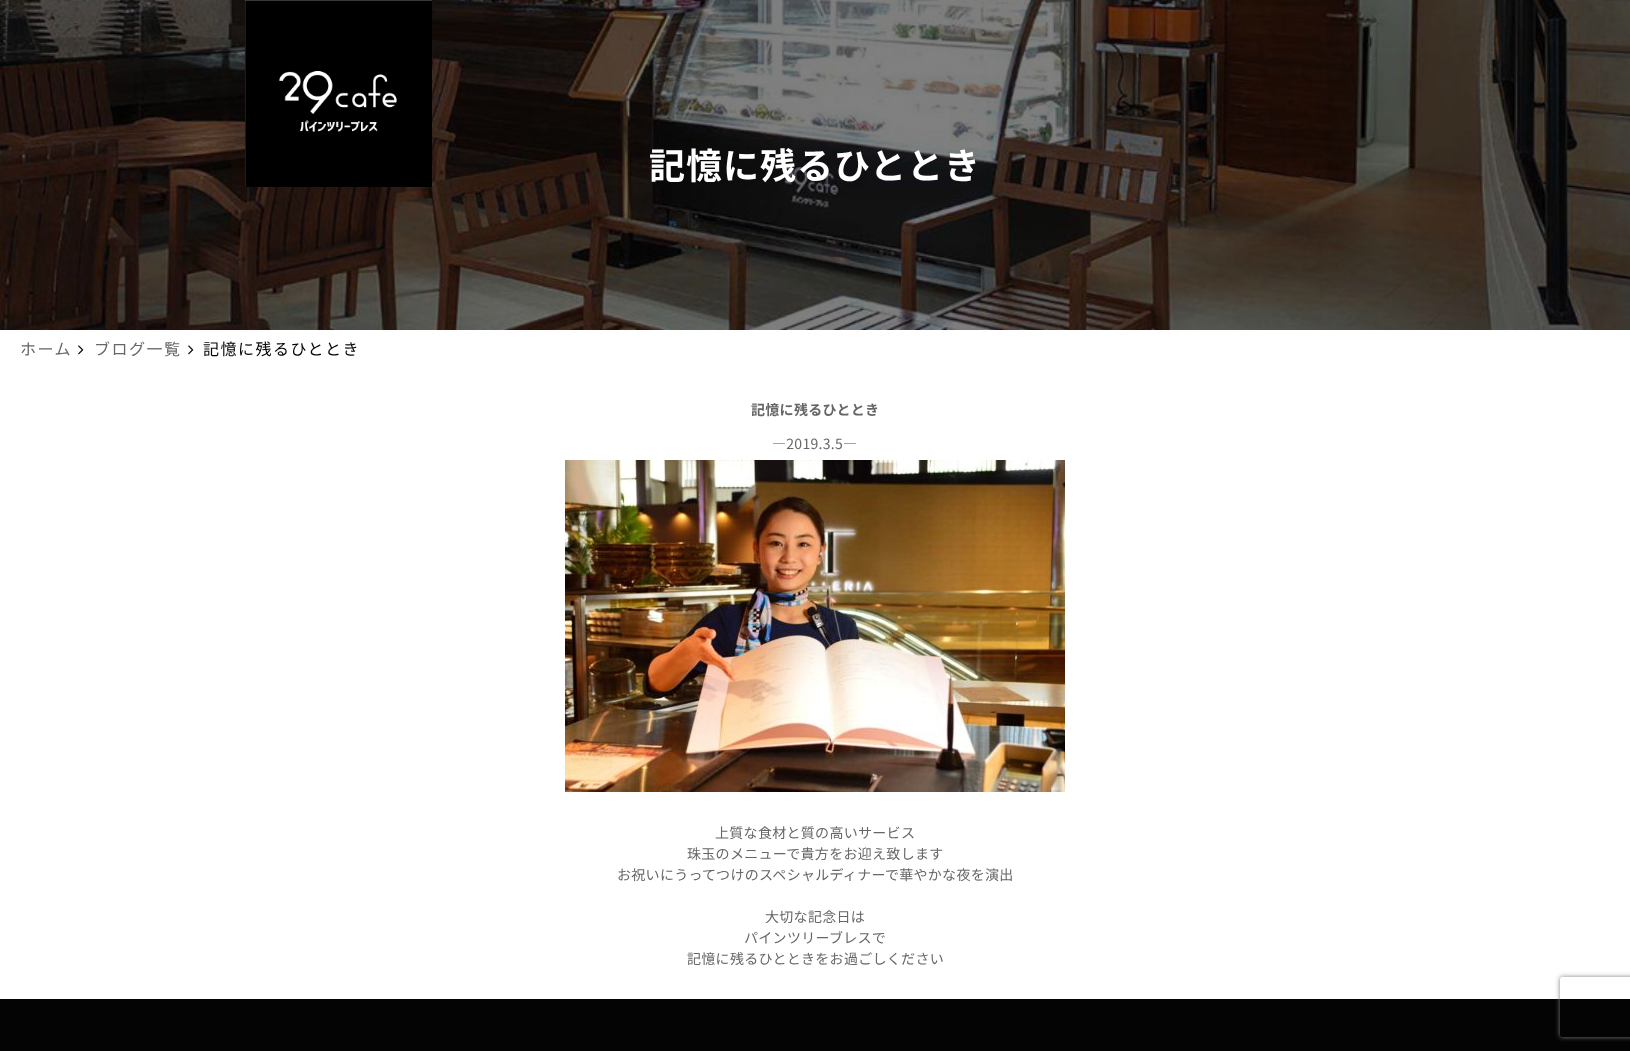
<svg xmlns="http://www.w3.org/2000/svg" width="1630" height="1051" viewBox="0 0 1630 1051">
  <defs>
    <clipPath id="clip1"><path d="M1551 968H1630V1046H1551ZM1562 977H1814C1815 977 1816 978 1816 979V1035C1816 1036 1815 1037 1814 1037H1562C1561 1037 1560 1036 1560 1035V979C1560 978 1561 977 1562 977Z" clip-rule="evenodd"/></clipPath>
    <filter id="blur1" x="-50%" y="-200%" width="200%" height="500%"><feGaussianBlur stdDeviation="2.5"/></filter>
  </defs>
  <rect width="100%" height="100%" fill="#ffffff"/>
  <image x="0" y="0" width="1630" height="330" href="img2.png"/>
  <image x="245" y="0" width="187" height="187" href="img1.png"/>
  <text x="649" y="179" font-family="Noto Sans CJK JP" font-size="36" font-weight="bold" letter-spacing="1" fill="#ffffff">記憶に残るひととき</text>
  <text x="20" y="355" font-family="Noto Sans CJK JP" font-size="16" letter-spacing="1.5" fill="#666666">ホーム</text>
  <image x="78" y="345" width="6" height="10" href="img3.png"/>
  <text x="94" y="355" font-family="Noto Sans CJK JP" font-size="16" letter-spacing="1.5" fill="#666666">ブログ一覧</text>
  <image x="188" y="345" width="6" height="10" href="img3.png"/>
  <text x="203" y="355" font-family="Noto Sans CJK JP" font-size="16" letter-spacing="1.5" fill="#050404">記憶に残るひととき</text>
  <text x="751" y="415" font-family="Noto Sans CJK JP" font-size="14" font-weight="bold" letter-spacing="0.3" fill="#666666">記憶に残るひととき</text>
  <text x="772" y="449" font-family="Noto Sans CJK JP" font-size="14" letter-spacing="0.3" fill="#666666">―2019.3.5―</text>
  <image x="565" y="460" width="500" height="332" href="img4.png"/>
  <text x="715" y="838" font-family="Noto Sans CJK JP" font-size="14" letter-spacing="0.3" fill="#666666">上質な食材と質の高いサービス</text>
  <text x="687" y="859" font-family="Noto Sans CJK JP" font-size="14" letter-spacing="0.3" fill="#666666">珠玉のメニューで貴方をお迎え致します</text>
  <text x="617" y="880" font-family="Noto Sans CJK JP" font-size="14" letter-spacing="0.3" fill="#666666">お祝いにうってつけのスペシャルディナーで華やかな夜を演出</text>
  <text x="765" y="922" font-family="Noto Sans CJK JP" font-size="14" letter-spacing="0.3" fill="#666666">大切な記念日は</text>
  <text x="744" y="943" font-family="Noto Sans CJK JP" font-size="14" letter-spacing="0.3" fill="#666666">パインツリーブレスで</text>
  <text x="687" y="964" font-family="Noto Sans CJK JP" font-size="14" letter-spacing="0.3" fill="#666666">記憶に残るひとときをお過ごしください</text>
  <rect x="0" y="999" width="1630" height="52" fill="#050404"/>
  <g clip-path="url(#clip1)">
    <rect x="1560" y="977" width="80" height="60" rx="2" fill="#808080" filter="url(#blur1)"/>
  </g>
</svg>
